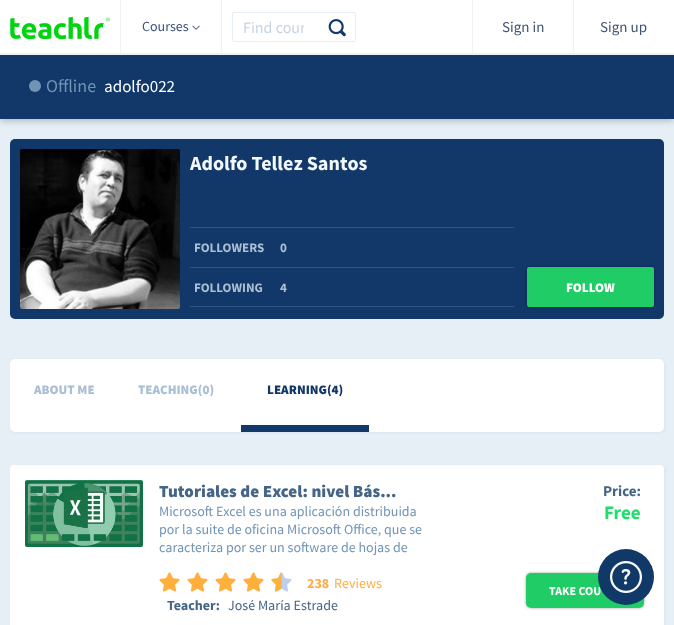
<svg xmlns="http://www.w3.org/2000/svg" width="674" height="625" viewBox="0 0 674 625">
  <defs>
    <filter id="blur1" x="-50%" y="-200%" width="200%" height="500%"><feGaussianBlur stdDeviation="3"/></filter>
    <clipPath id="clip1"><rect x="243" y="17" width="61" height="20"/></clipPath>
    <filter id="blur2" x="-50%" y="-200%" width="200%" height="500%"><feGaussianBlur stdDeviation="1.5"/></filter>
  </defs>
  <rect width="100%" height="100%" fill="#e6eef6"/>
  <rect x="0" y="57" width="674" height="64" fill="#030303" fill-opacity="0.23" filter="url(#blur1)"/>
  <rect x="0" y="0" width="674" height="53" fill="#ffffff"/>
  <rect x="0" y="53" width="674" height="2" fill="#ecf2f8"/>
  <image x="10" y="16" width="100" height="24" href="img1.png"/>
  <rect x="120" y="0" width="1" height="55" fill="#ecf2f8"/>
  <text x="142" y="31" font-family="Source Sans Pro" font-size="14" fill="#3e5374">Courses</text>
  <image x="192" y="25" width="8" height="5" href="img2.png"/>
  <rect x="221" y="0" width="1" height="55" fill="#ecf2f8"/>
  <rect x="233" y="12" width="122" height="1" fill="#e6eef6"/>
  <rect x="233" y="41" width="122" height="1" fill="#e6eef6"/>
  <rect x="232" y="13" width="1" height="28" fill="#e6eef6"/>
  <g clip-path="url(#clip1)">
    <text x="243" y="33" font-family="Source Sans Pro" font-size="16" fill="#c6d4e1">Find cour</text>
  </g>
  <rect x="355" y="13" width="1" height="28" fill="#e6eef6"/>
  <image x="328" y="19" width="18" height="18" href="img3.png"/>
  <rect x="472" y="0" width="1" height="55" fill="#ecf2f8"/>
  <text x="502" y="32" font-family="Source Sans Pro" font-size="15" fill="#3e5374">Sign in</text>
  <rect x="573" y="0" width="1" height="55" fill="#ecf2f8"/>
  <text x="600" y="32" font-family="Source Sans Pro" font-size="15" fill="#3e5374">Sign up</text>
  <rect x="0" y="55" width="674" height="64" fill="#113868"/>
  <circle cx="35" cy="86" r="6" fill="#7194b5"/>
  <text x="46" y="92" font-family="Source Sans Pro" font-size="18" fill="#7194b5">Offline</text>
  <text x="104" y="92" font-family="Source Sans Pro" font-size="17" fill="#ffffff">adolfo022</text>
  <rect x="10" y="139" width="654" height="180" rx="5" fill="#113868"/>
  <image x="20" y="149" width="160" height="160" href="img4.png"/>
  <text x="190" y="170" font-family="Source Sans Pro" font-size="20" font-weight="bold" fill="#f2f8fc">Adolfo Tellez Santos</text>
  <rect x="190" y="227" width="324" height="1" fill="#2e547f"/>
  <text x="194" y="252" font-family="Source Sans Pro" font-size="13" font-weight="bold" fill="#aabfd3">FOLLOWERS</text>
  <text x="280" y="252" font-family="Source Sans Pro" font-size="13" font-weight="bold" fill="#aabfd3">0</text>
  <rect x="190" y="267" width="324" height="1" fill="#2e547f"/>
  <rect x="190" y="306" width="324" height="1" fill="#2e547f"/>
  <text x="194" y="292" font-family="Source Sans Pro" font-size="13" font-weight="bold" fill="#aabfd3">FOLLOWING</text>
  <text x="280" y="292" font-family="Source Sans Pro" font-size="13" font-weight="bold" fill="#aabfd3">4</text>
  <rect x="527" y="267" width="127" height="40" rx="2" fill="#000000" fill-opacity="0.35" filter="url(#blur2)"/>
  <rect x="527" y="267" width="127" height="40" rx="2" fill="#1fcc65"/>
  <text x="566" y="292" font-family="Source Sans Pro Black" font-size="13" font-weight="900" fill="#ffffff">FOLLOW</text>
  <rect x="11" y="360" width="654" height="73" rx="5" fill="#aabfd3" fill-opacity="0.2" filter="url(#blur2)"/>
  <rect x="10" y="359" width="654" height="73" rx="5" fill="#ffffff"/>
  <text x="34" y="394" font-family="Source Sans Pro Black" font-size="13" font-weight="900" fill="#aabfd3">ABOUT ME</text>
  <text x="138" y="394" font-family="Source Sans Pro Black" font-size="13" font-weight="900" fill="#aabfd3">TEACHING(0)</text>
  <text x="267" y="394" font-family="Source Sans Pro Black" font-size="13" font-weight="900" fill="#113868">LEARNING(4)</text>
  <rect x="241" y="425" width="128" height="7" fill="#113868"/>
  <rect x="11" y="466" width="654" height="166" rx="4" fill="#aabfd3" fill-opacity="0.2" filter="url(#blur2)"/>
  <rect x="10" y="465" width="654" height="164" rx="4" fill="#ffffff"/>
  <image x="25" y="480" width="118" height="67" href="img5.png"/>
  <text x="159" y="497" font-family="Source Sans Pro Black" font-size="17" font-weight="900" fill="#456587">Tutoriales de Excel: nivel Bás...</text>
  <text x="159" y="516" font-family="Source Sans Pro" font-size="14" fill="#7194b5">Microsoft Excel es una aplicación distribuida</text>
  <text x="159" y="534" font-family="Source Sans Pro" font-size="14" fill="#7194b5">por la suite de oficina Microsoft Office, que se</text>
  <text x="159" y="552" font-family="Source Sans Pro" font-size="14" fill="#7194b5">caracteriza por ser un software de hojas de</text>
  <image x="159" y="572" width="21" height="20" href="img6.png"/>
  <image x="187" y="572" width="21" height="20" href="img6.png"/>
  <image x="215" y="572" width="21" height="20" href="img6.png"/>
  <image x="243" y="572" width="21" height="20" href="img6.png"/>
  <image x="271" y="572" width="21" height="20" href="img7.png"/>
  <text x="307" y="588" font-family="Source Sans Pro" font-size="14" font-weight="bold" fill="#ffac48">238</text>
  <text x="334" y="588" font-family="Source Sans Pro" font-size="14" fill="#ffac48">Reviews</text>
  <text x="167" y="610" font-family="Source Sans Pro" font-size="14" font-weight="bold" fill="#456587">Teacher:</text>
  <text x="228" y="610" font-family="Source Sans Pro" font-size="14" fill="#456587">José María Estrade</text>
  <text x="603" y="496" font-family="Source Sans Pro" font-size="15" font-weight="bold" fill="#456587">Price:</text>
  <text x="604" y="519" font-family="Source Sans Pro" font-size="19" font-weight="bold" fill="#22dd6d">Free</text>
  <rect x="526" y="573" width="118" height="35" rx="5" fill="#000000" fill-opacity="0.35" filter="url(#blur2)"/>
  <rect x="526" y="573" width="118" height="35" rx="5" fill="#1fcc65"/>
  <text x="549" y="595" font-family="Source Sans Pro" font-size="12" font-weight="bold" fill="#ffffff">TAKE COU</text>
  <circle cx="626" cy="577" r="28" fill="#113968"/>
  <image x="610" y="561" width="32" height="32" href="img8.png"/>
</svg>
